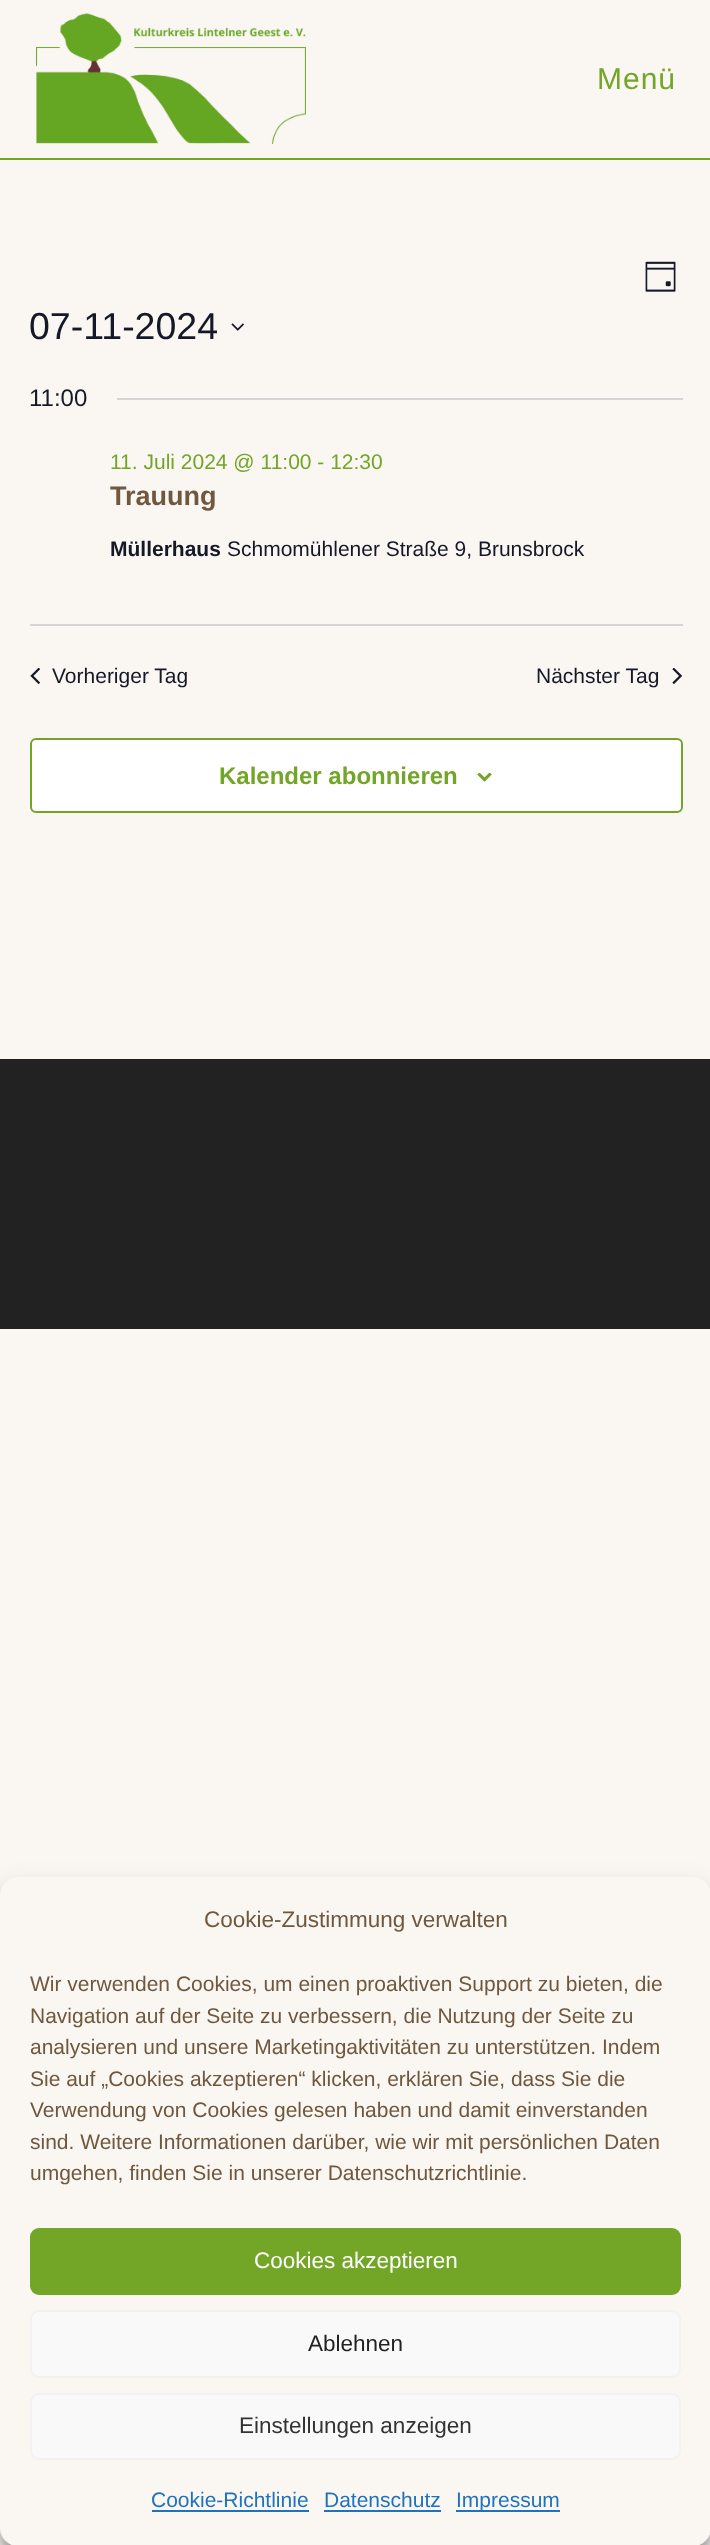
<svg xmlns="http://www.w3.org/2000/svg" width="710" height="2545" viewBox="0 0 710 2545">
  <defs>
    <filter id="blur1" x="-50%" y="-200%" width="200%" height="500%"><feGaussianBlur stdDeviation="4.5"/></filter>
    <filter id="blur2" x="-50%" y="-200%" width="200%" height="500%"><feGaussianBlur stdDeviation="15"/></filter>
  </defs>
  <rect width="100%" height="100%" fill="#faf6f2"/>
  <rect x="0" y="158" width="710" height="2" fill="#73a527"/>
  <image x="36" y="13" width="270" height="131" href="img1.png"/>
  <text x="597" y="89" font-family="Liberation Sans" font-size="30" letter-spacing="1" fill="#73a527">Menü</text>
  <image x="645" y="261" width="31" height="31" href="img2.png"/>
  <text x="29" y="339" font-family="Liberation Sans" font-size="37.5" fill="#141827">07-11-2024</text>
  <image x="231" y="323" width="13" height="8" href="img3.png"/>
  <text x="29" y="406" font-family="Liberation Sans" font-size="24" fill="#141827">11:00</text>
  <rect x="117" y="398" width="566" height="2" fill="#d5d5d5"/>
  <text x="110" y="469" font-family="Liberation Sans" font-size="21" fill="#73a527">11. Juli 2024 @ 11:00 - 12:30</text>
  <text x="110" y="505" font-family="Liberation Sans" font-size="27" font-weight="bold" fill="#6f583d">Trauung</text>
  <text x="110" y="556" font-family="Liberation Sans" font-size="21" font-weight="bold" fill="#141827">Müllerhaus</text>
  <text x="227" y="556" font-family="Liberation Sans" font-size="21" fill="#141827">Schmomühlener Straße 9, Brunsbrock</text>
  <rect x="30" y="624" width="653" height="2" fill="#d5d5d5"/>
  <image x="30" y="668" width="11" height="16" href="img4.png"/>
  <text x="52" y="683" font-family="Liberation Sans" font-size="21" fill="#141827">Vorheriger Tag</text>
  <text x="536" y="683" font-family="Liberation Sans" font-size="21" fill="#141827">Nächster Tag</text>
  <image x="672" y="668" width="11" height="16" href="img5.png"/>
  <rect x="31" y="739" width="651" height="73" rx="5" fill="#ffffff" stroke="#72a427" stroke-width="2"/>
  <text x="219" y="784" font-family="Liberation Sans" font-size="24" font-weight="bold" fill="#73a527">Kalender abonnieren</text>
  <image x="477" y="773" width="15" height="9" href="img6.png"/>
  <rect x="0" y="1059" width="710" height="270" fill="#222222"/>
  <rect x="0" y="1886" width="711" height="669" rx="18" fill="#000000" fill-opacity="0.23" filter="url(#blur1)"/>
  <rect x="0" y="1892" width="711" height="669" rx="18" fill="#000000" fill-opacity="0.19" filter="url(#blur2)"/>
  <rect x="0" y="1877" width="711" height="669" rx="18" fill="#faf6f2"/>
  <text x="204" y="1927" font-family="Liberation Sans" font-size="22.5" fill="#6f583d">Cookie-Zustimmung verwalten</text>
  <text x="30" y="1991" font-family="Liberation Sans" font-size="21" fill="#6f583d">Wir verwenden Cookies, um einen proaktiven Support zu bieten, die</text>
  <text x="30" y="2023" font-family="Liberation Sans" font-size="21" fill="#6f583d">Navigation auf der Seite zu verbessern, die Nutzung der Seite zu</text>
  <text x="30" y="2054" font-family="Liberation Sans" font-size="21" fill="#6f583d">analysieren und unsere Marketingaktivitäten zu unterstützen. Indem</text>
  <text x="30" y="2086" font-family="Liberation Sans" font-size="21" fill="#6f583d">Sie auf „Cookies akzeptieren“ klicken, erklären Sie, dass Sie die</text>
  <text x="30" y="2117" font-family="Liberation Sans" font-size="21" fill="#6f583d">Verwendung von Cookies gelesen haben und damit einverstanden</text>
  <text x="30" y="2149" font-family="Liberation Sans" font-size="21" fill="#6f583d">sind. Weitere Informationen darüber, wie wir mit persönlichen Daten</text>
  <text x="30" y="2180" font-family="Liberation Sans" font-size="21" fill="#6f583d">umgehen, finden Sie in unserer Datenschutzrichtlinie.</text>
  <rect x="31" y="2229" width="649" height="65" rx="8" fill="#73a527" stroke="#73a527" stroke-width="2"/>
  <text x="254" y="2268" font-family="Liberation Sans" font-size="22.5" fill="#ffffff">Cookies akzeptieren</text>
  <rect x="31" y="2311" width="649" height="66" rx="8" fill="#f9f9f9" stroke="#f2f2f2" stroke-width="2"/>
  <text x="308" y="2351" font-family="Liberation Sans" font-size="22.5" fill="#222222">Ablehnen</text>
  <rect x="31" y="2394" width="649" height="65" rx="8" fill="#f9f9f9" stroke="#f2f2f2" stroke-width="2"/>
  <text x="239" y="2433" font-family="Liberation Sans" font-size="22.5" fill="#333333">Einstellungen anzeigen</text>
  <text x="151" y="2507" font-family="Liberation Sans" font-size="21" fill="#1e73be">Cookie-Richtlinie</text>
  <rect x="152" y="2510" width="157" height="2" fill="#1e73be"/>
  <text x="324" y="2507" font-family="Liberation Sans" font-size="21" fill="#1e73be">Datenschutz</text>
  <rect x="324" y="2510" width="117" height="2" fill="#1e73be"/>
  <rect x="456" y="2510" width="104" height="2" fill="#1e73be"/>
  <text x="456" y="2507" font-family="Liberation Sans" font-size="21" fill="#1e73be">Impressum</text>
</svg>
